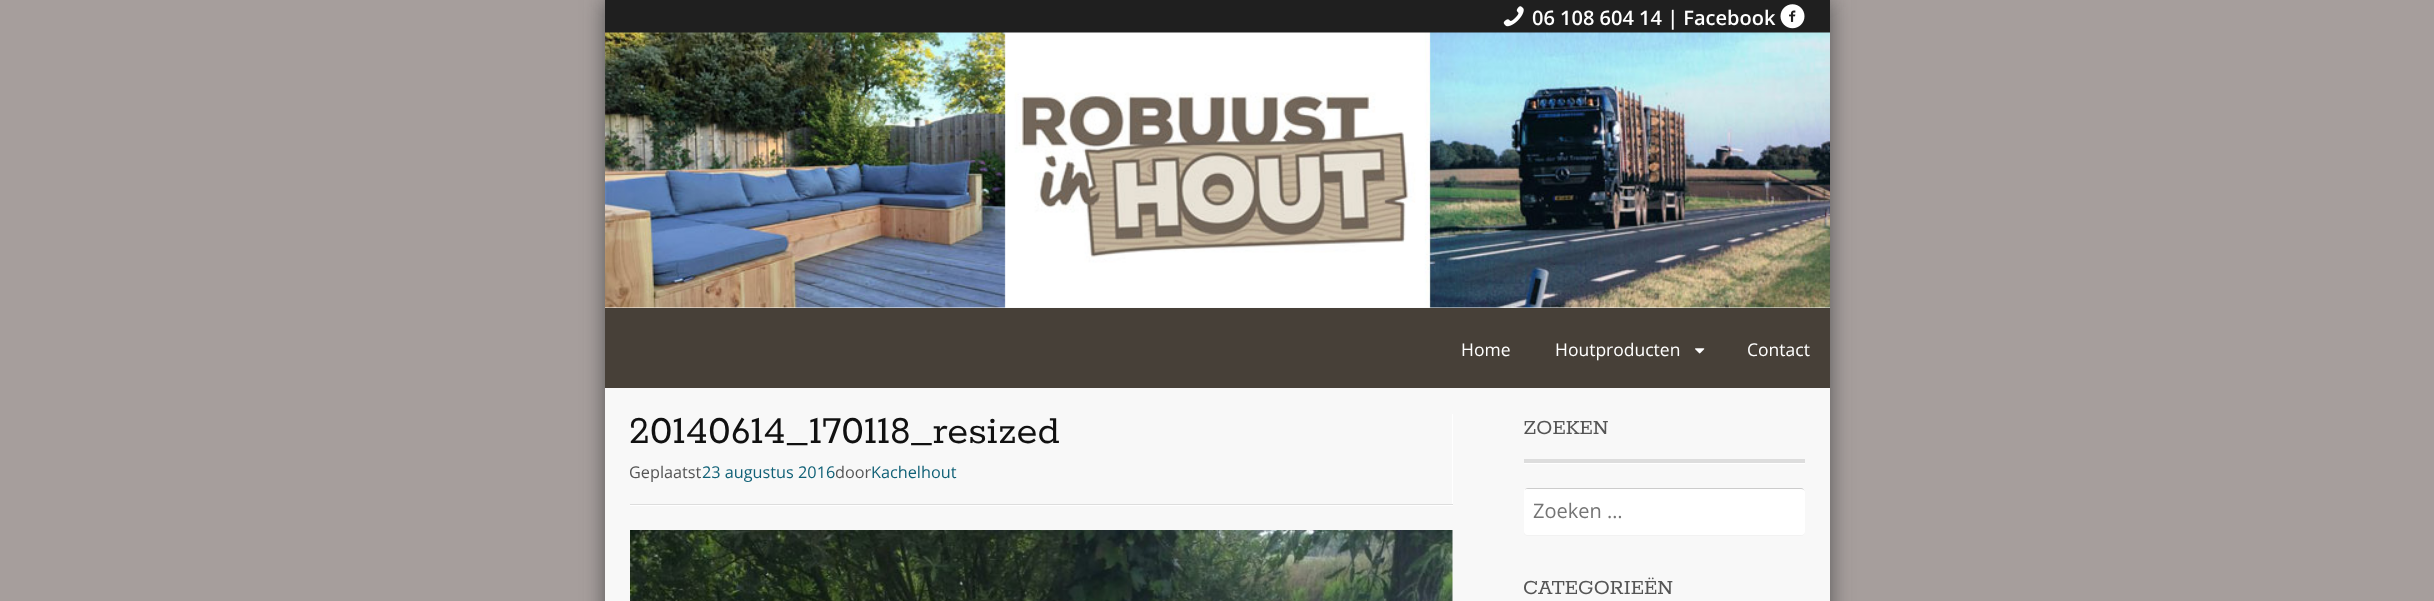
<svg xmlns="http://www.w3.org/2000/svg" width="2434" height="601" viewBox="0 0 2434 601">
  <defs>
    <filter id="blur1" x="-50%" y="-200%" width="200%" height="500%"><feGaussianBlur stdDeviation="11"/></filter>
  </defs>
  <rect width="100%" height="100%" fill="#a69e9c"/>
  <rect x="605" y="0" width="1225" height="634" fill="#555555" filter="url(#blur1)"/>
  <rect x="605" y="307" width="1225" height="294" fill="#f8f8f8"/>
  <rect x="605" y="0" width="1225" height="33" fill="#1f1f1f"/>
  <image x="1503" y="6" width="21" height="21" href="img1.png"/>
  <text x="1532" y="25" font-family="Open Sans" font-size="20" font-weight="600" fill="#ffffff">06 108 604 14 | Facebook</text>
  <image x="1780" y="4" width="25" height="25" href="img2.png"/>
  <image x="605" y="32" width="1225" height="276" href="img3.png"/>
  <rect x="605" y="308" width="1225" height="80" fill="#474038"/>
  <text x="1461" y="356" font-family="Open Sans" font-size="17.5" fill="#ffffff">Home</text>
  <text x="1555" y="356" font-family="Open Sans" font-size="17.5" fill="#ffffff">Houtproducten</text>
  <image x="1695" y="348" width="10" height="6" href="img4.png"/>
  <text x="1747" y="356" font-family="Open Sans" font-size="17.5" fill="#ffffff">Contact</text>
  <path d="M630 505V506H1453V414H1452V505Z" fill="#ffffff"/>
  <rect x="630" y="504" width="823" height="1" fill="#dddddd"/>
  <text x="629" y="443" font-family="Rokkitt" font-size="42.5" fill="#111111">20140614_170118_resized</text>
  <text x="629" y="478" font-family="Open Sans" font-size="16.25" fill="#555555">Geplaatst</text>
  <text x="702" y="478" font-family="Open Sans" font-size="16.25" fill="#106177">23 augustus 2016</text>
  <text x="835" y="478" font-family="Open Sans" font-size="16.25" fill="#555555">door</text>
  <text x="871" y="478" font-family="Open Sans" font-size="16.25" fill="#106177">Kachelhout</text>
  <image x="630" y="530" width="823" height="71" href="img5.png"/>
  <rect x="1524" y="463" width="281" height="1" fill="#ffffff"/>
  <rect x="1524" y="459" width="281" height="4" fill="#dddddd"/>
  <text x="1523" y="434" font-family="Rokkitt" font-size="22.5" fill="#555555">ZOEKEN</text>
  <path d="M1524 533C1524 535 1526 536 1528 536H1801C1803 536 1805 534 1805 532V531C1805 533 1803 535 1801 535H1528C1526 535 1525 534 1524 533Z" fill="#f2f2f2"/>
  <rect x="1524" y="488" width="281" height="47" rx="4" fill="#ffffff"/>
  <path d="M1528 489H1801C1803 489 1805 490 1805 492C1805 490 1803 488 1801 488H1528C1526 488 1525 489 1524 490C1525 489 1526 489 1528 489Z" fill="#cccccc"/>
  <text x="1533" y="518" font-family="Open Sans" font-size="20" fill="#757575">Zoeken …</text>
  <text x="1523" y="594" font-family="Rokkitt" font-size="22.5" fill="#555555">CATEGORIEËN</text>
</svg>
